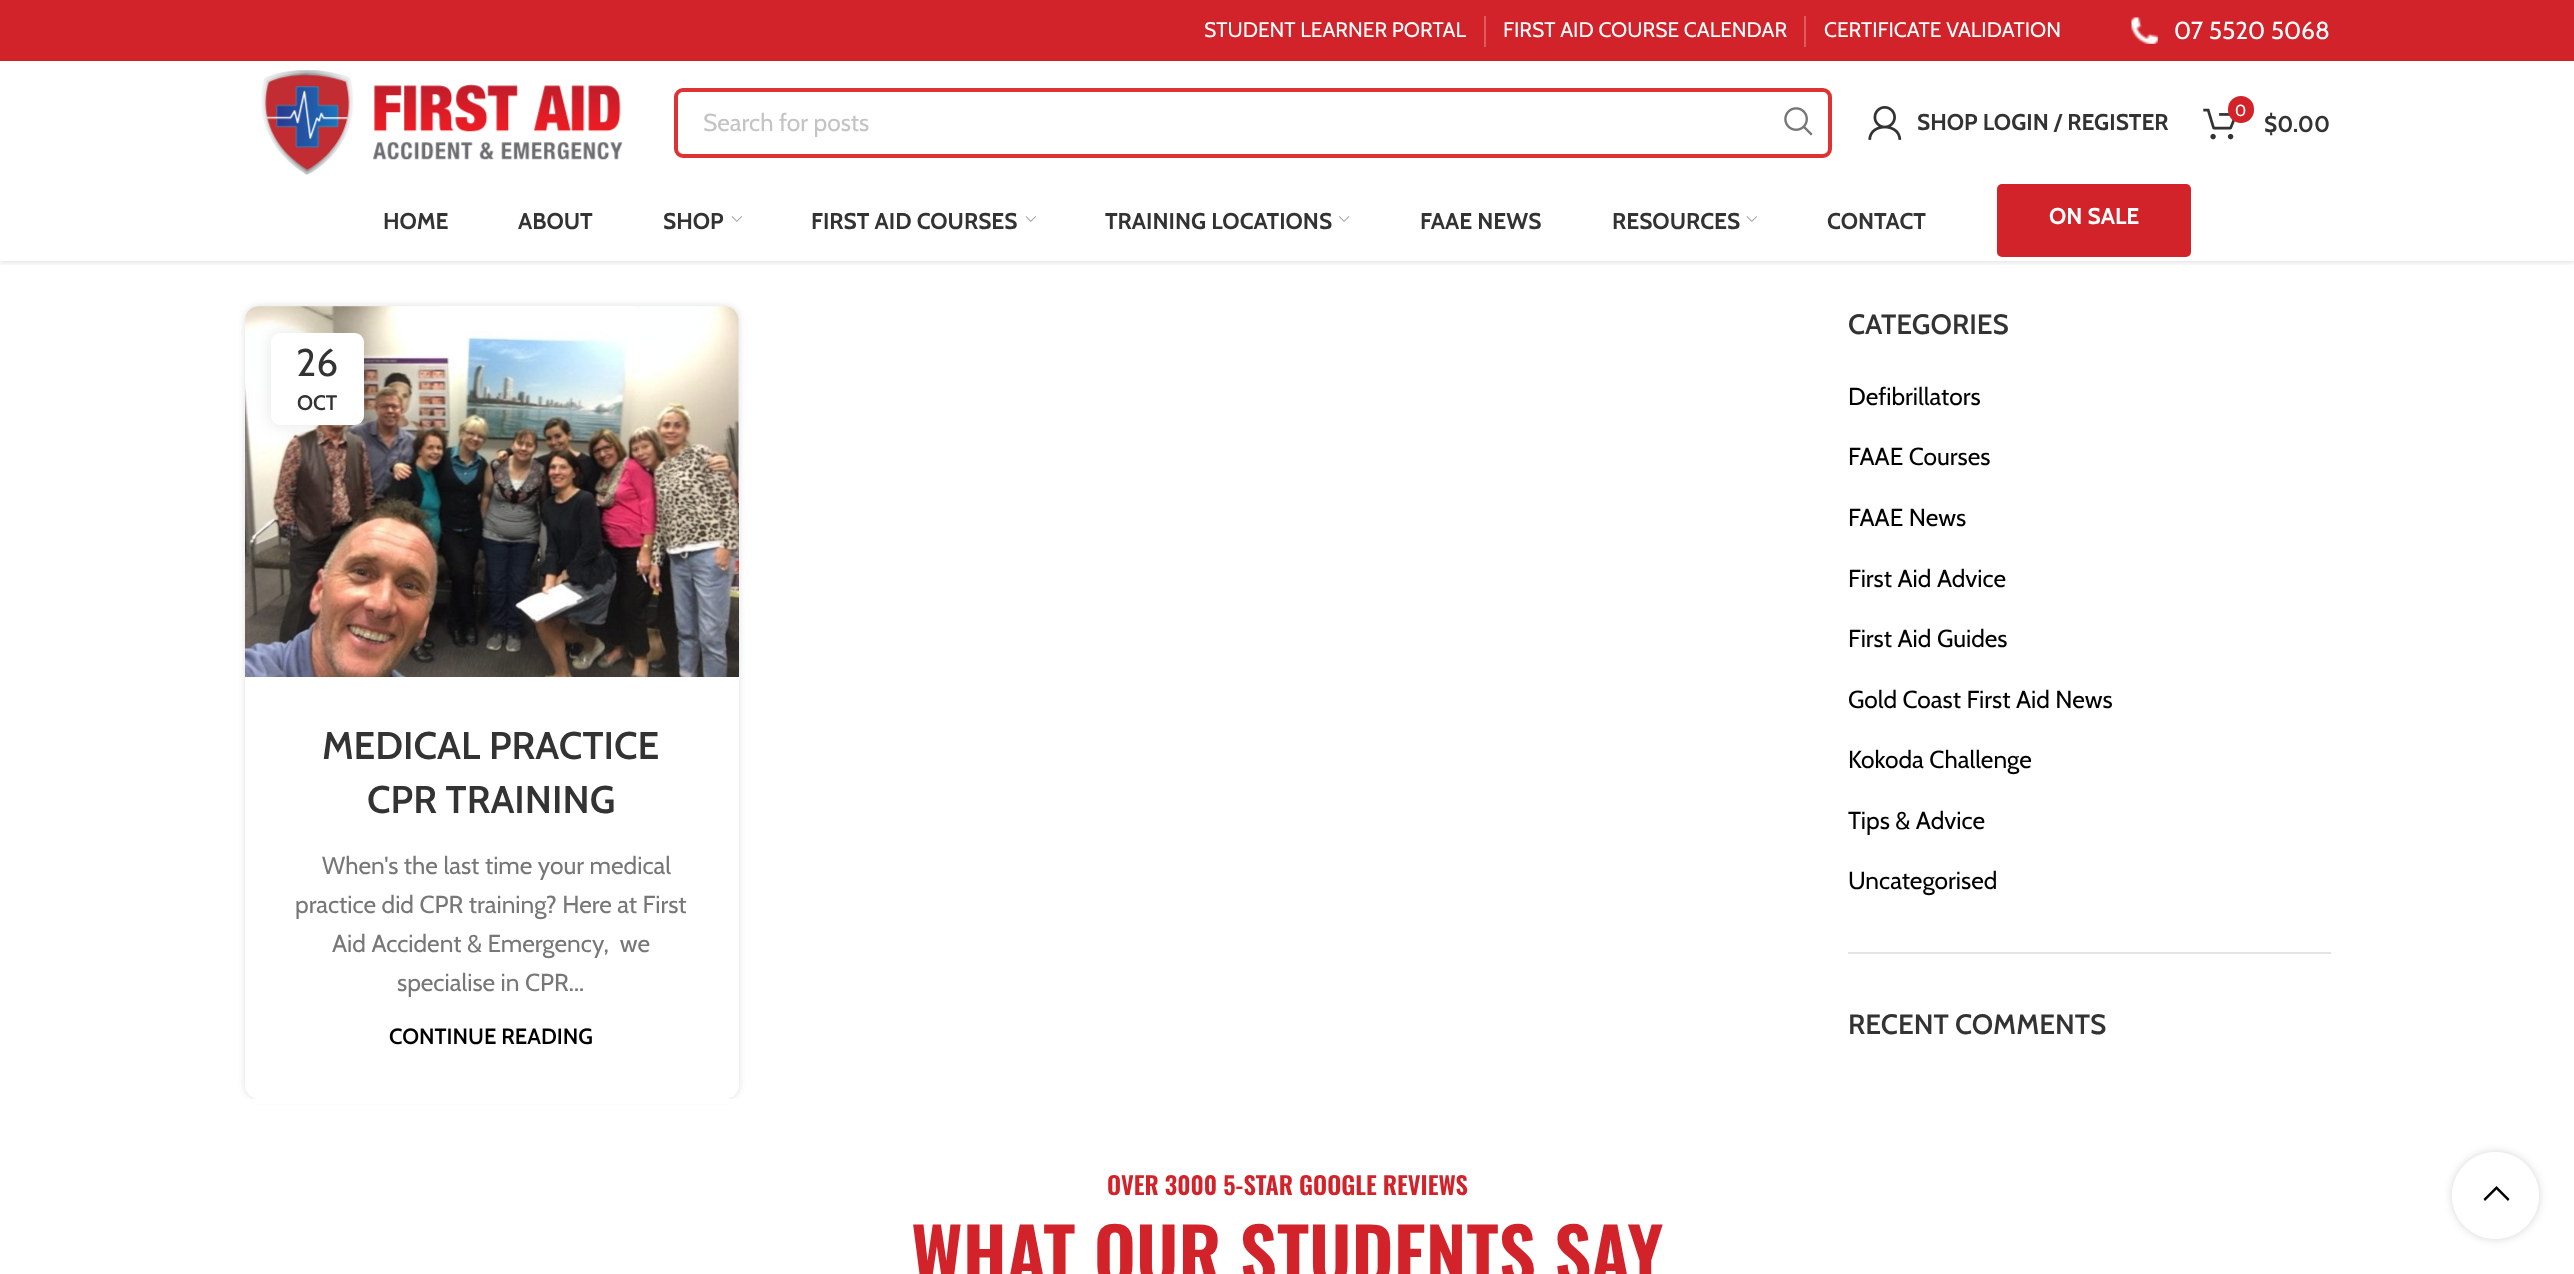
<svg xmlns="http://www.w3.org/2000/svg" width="2574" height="1274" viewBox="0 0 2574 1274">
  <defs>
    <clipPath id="clip1"><rect x="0" y="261" width="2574" height="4"/></clipPath>
    <filter id="blur1" x="-50%" y="-200%" width="200%" height="500%"><feGaussianBlur stdDeviation="2.5"/></filter>
    <filter id="blur2" x="-50%" y="-200%" width="200%" height="500%"><feGaussianBlur stdDeviation="3.5"/></filter>
    <filter id="blur3" x="-50%" y="-200%" width="200%" height="500%"><feGaussianBlur stdDeviation="8"/></filter>
    <clipPath id="clip2"><path d="M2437 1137H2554V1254H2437ZM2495.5 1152C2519.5 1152 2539 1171.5 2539 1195.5C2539 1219.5 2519.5 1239 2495.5 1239C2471.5 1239 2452 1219.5 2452 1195.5C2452 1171.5 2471.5 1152 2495.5 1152Z" clip-rule="evenodd"/></clipPath>
    <filter id="blur4" x="-50%" y="-200%" width="200%" height="500%"><feGaussianBlur stdDeviation="4.5"/></filter>
  </defs>
  <rect width="100%" height="100%" fill="#ffffff"/>
  <g clip-path="url(#clip1)">
    <rect x="0" y="2" width="2574" height="261" fill="#000000" fill-opacity="0.1" filter="url(#blur1)"/>
  </g>
  <rect x="0" y="260" width="2574" height="1" fill="#ffffff"/>
  <rect x="0" y="0" width="2574" height="61" fill="#d2232a"/>
  <text x="1204" y="37" font-family="Cabin" font-size="21" fill="#ffffff">STUDENT LEARNER PORTAL</text>
  <rect x="1484" y="16" width="2" height="31" fill="#dd5a5f"/>
  <text x="1503" y="37" font-family="Cabin" font-size="21" fill="#ffffff">FIRST AID COURSE CALENDAR</text>
  <rect x="1804" y="16" width="2" height="31" fill="#dd5a5f"/>
  <text x="1824" y="37" font-family="Cabin" font-size="21" fill="#ffffff">CERTIFICATE VALIDATION</text>
  <image x="2131" y="17" width="27" height="27" href="img1.png"/>
  <text x="2174" y="39" font-family="Cabin" font-size="24.5" fill="#ffffff">07 5520 5068</text>
  <image x="261" y="70" width="362" height="106" href="img2.png"/>
  <rect x="676" y="90" width="1154" height="66" rx="7" fill="none" stroke="#dd3333" stroke-width="4"/>
  <text x="703" y="131" font-family="Cabin" font-size="24.5" fill="#c4c4c4">Search for posts</text>
  <image x="1784" y="107" width="29" height="29" href="img3.png"/>
  <image x="1868" y="106" width="34" height="34" href="img4.png"/>
  <text x="1917" y="130" font-family="Cabin" font-size="22.75" font-weight="bold" fill="#333333">SHOP LOGIN / REGISTER</text>
  <image x="2203" y="108" width="32" height="32" href="img5.png"/>
  <rect x="2228" y="96" width="26" height="27" rx="13" fill="#d2232a"/>
  <text x="2235" y="116" font-family="Cabin" font-size="16" fill="#ffffff">0</text>
  <text x="2264" y="132" font-family="Cabin" font-size="22.75" font-weight="bold" fill="#333333">$0.00</text>
  <text x="383" y="229" font-family="Cabin" font-size="22.75" font-weight="bold" fill="#333333">HOME</text>
  <text x="518" y="229" font-family="Cabin" font-size="22.75" font-weight="bold" fill="#333333">ABOUT</text>
  <text x="663" y="229" font-family="Cabin" font-size="22.75" font-weight="bold" fill="#333333">SHOP</text>
  <image x="731" y="216" width="11" height="6" href="img6.png"/>
  <text x="811" y="229" font-family="Cabin" font-size="22.75" font-weight="bold" fill="#333333">FIRST AID COURSES</text>
  <image x="1025" y="216" width="11" height="6" href="img6.png"/>
  <text x="1105" y="229" font-family="Cabin" font-size="22.75" font-weight="bold" fill="#333333">TRAINING LOCATIONS</text>
  <image x="1338" y="216" width="12" height="6" href="img7.png"/>
  <text x="1420" y="229" font-family="Cabin" font-size="22.75" font-weight="bold" fill="#333333">FAAE NEWS</text>
  <text x="1612" y="229" font-family="Cabin" font-size="22.75" font-weight="bold" fill="#333333">RESOURCES</text>
  <image x="1746" y="216" width="11" height="6" href="img6.png"/>
  <text x="1827" y="229" font-family="Cabin" font-size="22.75" font-weight="bold" fill="#333333">CONTACT</text>
  <rect x="1997" y="184" width="194" height="73" rx="5" fill="#d2232a"/>
  <text x="2049" y="224" font-family="Cabin" font-size="22.75" font-weight="bold" fill="#ffffff">ON SALE</text>
  <rect x="245" y="306" width="494" height="793" rx="14" fill="#000000" fill-opacity="0.12" filter="url(#blur2)"/>
  <image x="245" y="306" width="494" height="371" href="img8.png"/>
  <rect x="271" y="333" width="93" height="92" rx="9" fill="#000000" fill-opacity="0.1" filter="url(#blur3)"/>
  <rect x="271" y="333" width="93" height="92" rx="9" fill="#ffffff"/>
  <text x="296" y="376" font-family="Cabin" font-size="38.5" fill="#333333">26</text>
  <text x="297" y="410" font-family="Cabin" font-size="21" font-weight="600" fill="#333333">OCT</text>
  <path d="M245 677H739V1085C739 1092.5 732.5 1099 725 1099H259C251.5 1099 245 1092.5 245 1085Z" fill="#ffffff"/>
  <text x="322" y="759" font-family="Cabin" font-size="38.5" font-weight="600" fill="#333333">MEDICAL PRACTICE</text>
  <text x="367" y="813" font-family="Cabin" font-size="38.5" font-weight="600" fill="#333333">CPR TRAINING</text>
  <text x="322" y="874" font-family="Cabin" font-size="24.5" fill="#777777">When's the last time your medical</text>
  <text x="295" y="913" font-family="Cabin" font-size="24.5" fill="#777777">practice did CPR training? Here at First</text>
  <text x="332" y="952" font-family="Cabin" font-size="24.5" fill="#777777" xml:space="preserve">Aid Accident &amp; Emergency,  we</text>
  <text x="397" y="991" font-family="Cabin" font-size="24.5" fill="#777777">specialise in CPR...</text>
  <text x="389" y="1044" font-family="Cabin" font-size="22" font-weight="600" fill="#000000">CONTINUE READING</text>
  <rect x="1848" y="952" width="483" height="2" fill="#e4e4e4"/>
  <text x="1848" y="334" font-family="Cabin" font-size="28" font-weight="600" fill="#333333">CATEGORIES</text>
  <text x="1848" y="405" font-family="Cabin" font-size="24.5" fill="#000000">Defibrillators</text>
  <text x="1848" y="465" font-family="Cabin" font-size="24.5" fill="#000000">FAAE Courses</text>
  <text x="1848" y="526" font-family="Cabin" font-size="24.5" fill="#000000">FAAE News</text>
  <text x="1848" y="587" font-family="Cabin" font-size="24.5" fill="#000000">First Aid Advice</text>
  <text x="1848" y="647" font-family="Cabin" font-size="24.5" fill="#000000">First Aid Guides</text>
  <text x="1848" y="708" font-family="Cabin" font-size="24.5" fill="#000000">Gold Coast First Aid News</text>
  <text x="1848" y="768" font-family="Cabin" font-size="24.5" fill="#000000">Kokoda Challenge</text>
  <text x="1848" y="829" font-family="Cabin" font-size="24.5" fill="#000000">Tips &amp; Advice</text>
  <text x="1848" y="889" font-family="Cabin" font-size="24.5" fill="#000000">Uncategorised</text>
  <text x="1848" y="1034" font-family="Cabin" font-size="28" font-weight="600" fill="#333333">RECENT COMMENTS</text>
  <rect x="248" y="1099" width="488" height="5" fill="#ffffff"/>
  <text x="1107" y="1195" font-family="Oswald" font-size="24.5" font-weight="600" fill="#d2232a">OVER 3000 5-STAR GOOGLE REVIEWS</text>
  <text x="911" y="1284" font-family="Oswald" font-size="73.5" font-weight="600" fill="#d2232a">WHAT OUR STUDENTS SAY</text>
  <g clip-path="url(#clip2)">
    <rect x="2452" y="1152" width="87" height="87" rx="43.5" fill="#000000" fill-opacity="0.17" filter="url(#blur4)"/>
  </g>
  <circle cx="2495.5" cy="1195.5" r="43.5" fill="#ffffff" fill-opacity="0.9"/>
  <path d="M2508 1201L2509.5 1199L2496.5 1186L2483.5 1199L2485 1201L2496.5 1189.5Z" fill="#000000"/>
</svg>
